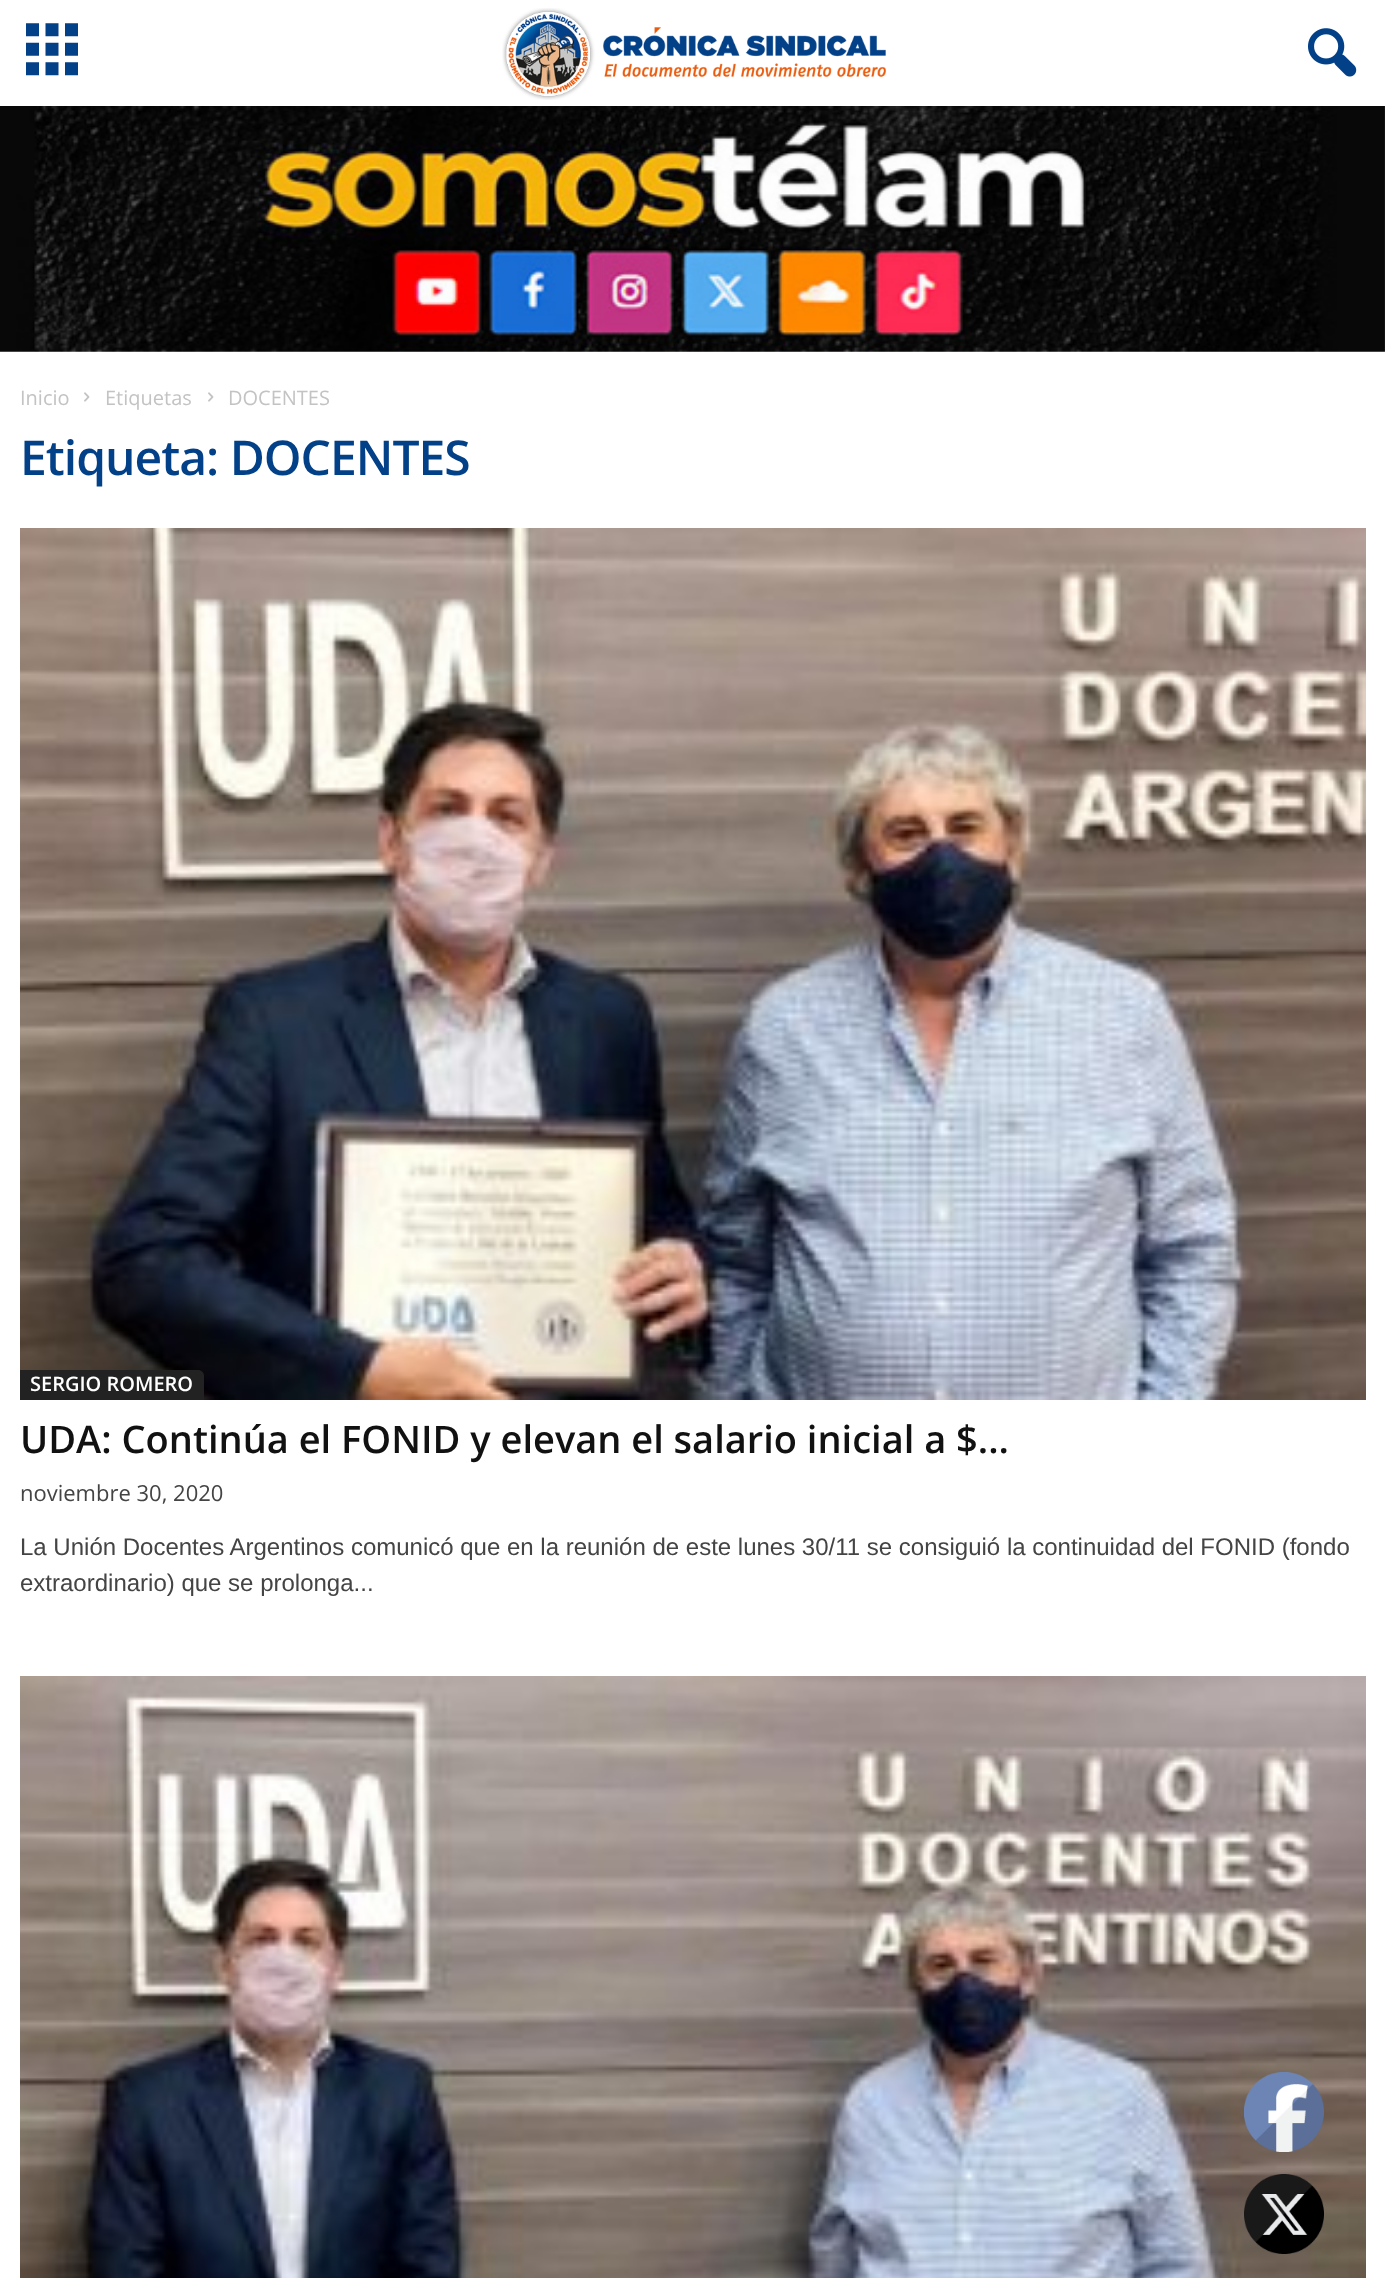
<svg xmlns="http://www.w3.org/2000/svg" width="1385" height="2278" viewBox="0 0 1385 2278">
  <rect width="100%" height="100%" fill="#ffffff"/>
  <image x="26" y="23" width="52" height="53" href="img1.png"/>
  <image x="502" y="8" width="384" height="92" href="img2.png"/>
  <image x="1308" y="28" width="49" height="49" href="img3.png"/>
  <image x="0" y="106" width="1385" height="246" href="img4.png"/>
  <text x="20" y="405" font-family="Open Sans" font-size="20" fill="#c3c3c3">Inicio</text>
  <image x="84" y="392" width="6" height="10" href="img5.png"/>
  <text x="105" y="405" font-family="Open Sans" font-size="20" fill="#c3c3c3">Etiquetas</text>
  <image x="208" y="392" width="6" height="10" href="img5.png"/>
  <text x="228" y="405" font-family="Open Sans" font-size="20" fill="#c3c3c3">DOCENTES</text>
  <text x="20" y="475" font-family="Open Sans" font-size="48" font-weight="600" letter-spacing="-1" fill="#024088">Etiqueta: DOCENTES</text>
  <image x="20" y="528" width="1346" height="872" href="img6.png"/>
  <path d="M20 1370H198C201.5 1370 204 1372.5 204 1376V1400H20Z" fill="#222222"/>
  <text x="30" y="1391" font-family="Open Sans" font-size="20" font-weight="600" fill="#ffffff">SERGIO ROMERO</text>
  <text x="20" y="1453" font-family="Open Sans" font-size="38" font-weight="600" fill="#111111">UDA: Continúa el FONID y elevan el salario inicial a $...</text>
  <text x="20" y="1501" font-family="Open Sans" font-size="22" fill="#444444">noviembre 30, 2020</text>
  <text x="20" y="1555" font-family="Liberation Sans" font-size="24" fill="#444444">La Unión Docentes Argentinos comunicó que en la reunión de este lunes 30/11 se consiguió la continuidad del FONID (fondo</text>
  <text x="20" y="1591" font-family="Liberation Sans" font-size="24" fill="#444444">extraordinario) que se prolonga...</text>
  <image x="20" y="1676" width="1346" height="602" href="img7.png"/>
  <image x="1244" y="2072" width="80" height="80" href="img8.png"/>
  <image x="1244" y="2174" width="80" height="80" href="img9.png"/>
</svg>
